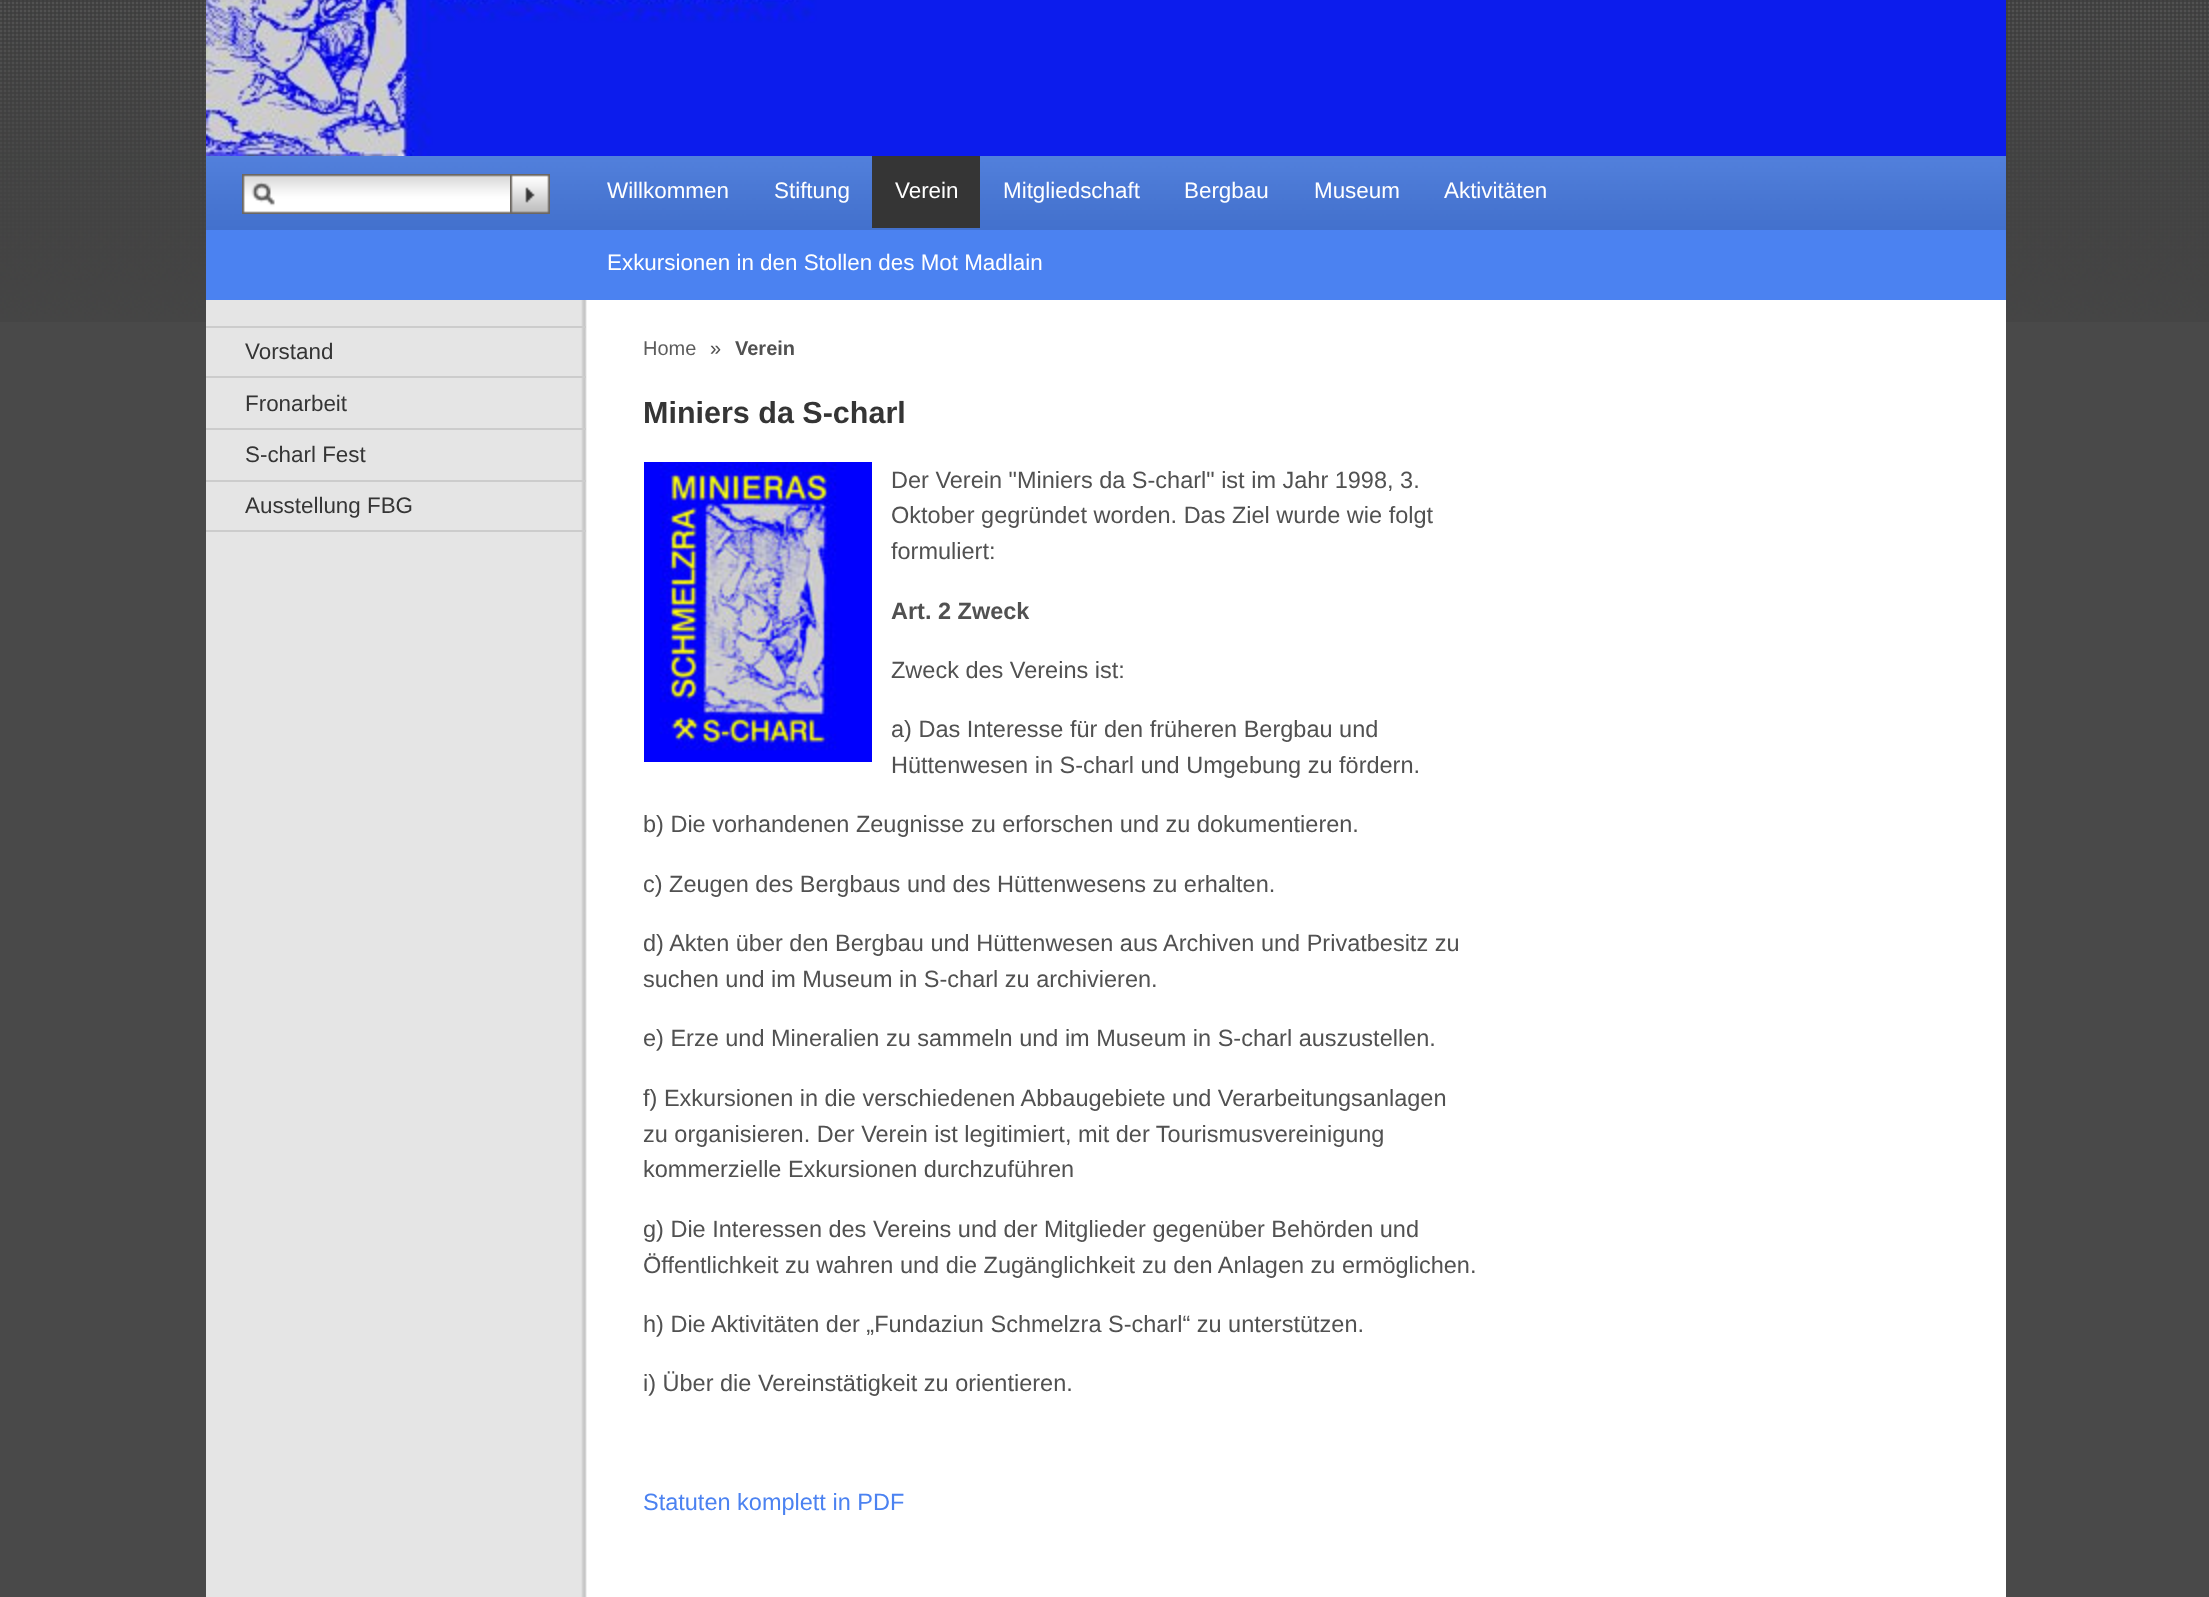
<svg xmlns="http://www.w3.org/2000/svg" width="2209" height="1597" viewBox="0 0 2209 1597">
  <rect width="100%" height="100%" fill="#494949"/>
  <image x="0" y="0" width="2209" height="322" href="img1.png"/>
  <image x="206" y="0" width="1800" height="156" href="img2.png"/>
  <rect x="206" y="156" width="1800" height="144" fill="#4b82f1"/>
  <image x="206" y="156" width="1800" height="74" href="img5.png"/>
  <image x="242" y="174" width="268" height="40" href="img3.png"/>
  <image x="510" y="174" width="40" height="40" href="img4.png"/>
  <text x="607" y="198" font-family="Liberation Sans" font-size="22.4" fill="#ffffff">Willkommen</text>
  <text x="774" y="198" font-family="Liberation Sans" font-size="22.4" fill="#ffffff">Stiftung</text>
  <rect x="872" y="156" width="108" height="72" fill="#353535"/>
  <text x="895" y="198" font-family="Liberation Sans" font-size="22.4" fill="#ffffff">Verein</text>
  <text x="1003" y="198" font-family="Liberation Sans" font-size="22.4" fill="#ffffff">Mitgliedschaft</text>
  <text x="1184" y="198" font-family="Liberation Sans" font-size="22.4" fill="#ffffff">Bergbau</text>
  <text x="1314" y="198" font-family="Liberation Sans" font-size="22.4" fill="#ffffff">Museum</text>
  <text x="1444" y="198" font-family="Liberation Sans" font-size="22.4" fill="#ffffff">Aktivitäten</text>
  <text x="607" y="270" font-family="Liberation Sans" font-size="22.4" fill="#ffffff">Exkursionen in den Stollen des Mot Madlain</text>
  <image x="206" y="300" width="1800" height="1297" href="img6.png"/>
  <rect x="206" y="530" width="380" height="2" fill="#cccccc"/>
  <rect x="206" y="326" width="380" height="2" fill="#cccccc"/>
  <text x="245" y="359" font-family="Liberation Sans" font-size="22.4" fill="#353535">Vorstand</text>
  <rect x="206" y="376" width="380" height="2" fill="#cccccc"/>
  <text x="245" y="411" font-family="Liberation Sans" font-size="22.4" fill="#353535">Fronarbeit</text>
  <rect x="206" y="428" width="380" height="2" fill="#cccccc"/>
  <text x="245" y="462" font-family="Liberation Sans" font-size="22.4" fill="#353535">S-charl Fest</text>
  <rect x="206" y="480" width="380" height="2" fill="#cccccc"/>
  <text x="245" y="513" font-family="Liberation Sans" font-size="22.4" fill="#353535">Ausstellung FBG</text>
  <text x="643" y="355" font-family="Liberation Sans" font-size="20" fill="#5d5d5d">Home</text>
  <text x="710" y="355" font-family="Liberation Sans" font-size="20" fill="#515151">»</text>
  <text x="735" y="355" font-family="Liberation Sans" font-size="20" font-weight="bold" fill="#515151">Verein</text>
  <text x="643" y="423" font-family="Liberation Sans" font-size="30.5" font-weight="bold" fill="#353535">Miniers da S-charl</text>
  <image x="644" y="462" width="228" height="300" href="img7.png"/>
  <text x="891" y="488" font-family="Liberation Sans" font-size="23.5" fill="#515151">Der Verein "Miniers da S-charl" ist im Jahr 1998, 3.</text>
  <text x="891" y="523" font-family="Liberation Sans" font-size="23.5" fill="#515151">Oktober gegründet worden. Das Ziel wurde wie folgt</text>
  <text x="891" y="559" font-family="Liberation Sans" font-size="23.5" fill="#515151">formuliert:</text>
  <text x="891" y="619" font-family="Liberation Sans" font-size="23.5" font-weight="bold" fill="#515151">Art. 2 Zweck</text>
  <text x="891" y="678" font-family="Liberation Sans" font-size="23.5" fill="#515151">Zweck des Vereins ist:</text>
  <text x="891" y="737" font-family="Liberation Sans" font-size="23.5" fill="#515151">a) Das Interesse für den früheren Bergbau und</text>
  <text x="891" y="773" font-family="Liberation Sans" font-size="23.5" fill="#515151">Hüttenwesen in S-charl und Umgebung zu fördern.</text>
  <text x="643" y="832" font-family="Liberation Sans" font-size="23.5" fill="#515151">b) Die vorhandenen Zeugnisse zu erforschen und zu dokumentieren.</text>
  <text x="643" y="892" font-family="Liberation Sans" font-size="23.5" fill="#515151">c) Zeugen des Bergbaus und des Hüttenwesens zu erhalten.</text>
  <text x="643" y="951" font-family="Liberation Sans" font-size="23.5" fill="#515151">d) Akten über den Bergbau und Hüttenwesen aus Archiven und Privatbesitz zu</text>
  <text x="643" y="987" font-family="Liberation Sans" font-size="23.5" fill="#515151">suchen und im Museum in S-charl zu archivieren.</text>
  <text x="643" y="1046" font-family="Liberation Sans" font-size="23.5" fill="#515151">e) Erze und Mineralien zu sammeln und im Museum in S-charl auszustellen.</text>
  <text x="643" y="1106" font-family="Liberation Sans" font-size="23.5" fill="#515151">f) Exkursionen in die verschiedenen Abbaugebiete und Verarbeitungsanlagen</text>
  <text x="643" y="1142" font-family="Liberation Sans" font-size="23.5" fill="#515151">zu organisieren. Der Verein ist legitimiert, mit der Tourismusvereinigung</text>
  <text x="643" y="1177" font-family="Liberation Sans" font-size="23.5" fill="#515151">kommerzielle Exkursionen durchzuführen</text>
  <text x="643" y="1237" font-family="Liberation Sans" font-size="23.5" fill="#515151">g) Die Interessen des Vereins und der Mitglieder gegenüber Behörden und</text>
  <text x="643" y="1273" font-family="Liberation Sans" font-size="23.5" fill="#515151">Öffentlichkeit zu wahren und die Zugänglichkeit</text>
  <text x="1142" y="1273" font-family="Liberation Sans" font-size="23.5" fill="#515151">zu den Anlagen zu ermöglichen.</text>
  <text x="643" y="1332" font-family="Liberation Sans" font-size="23.5" fill="#515151">h) Die Aktivitäten der „Fundaziun Schmelzra S-charl“ zu unterstützen.</text>
  <text x="643" y="1391" font-family="Liberation Sans" font-size="23.5" fill="#515151">i) Über die Vereinstätigkeit zu orientieren.</text>
  <text x="643" y="1510" font-family="Liberation Sans" font-size="23.5" fill="#4b82f1">Statuten komplett in PDF</text>
</svg>
